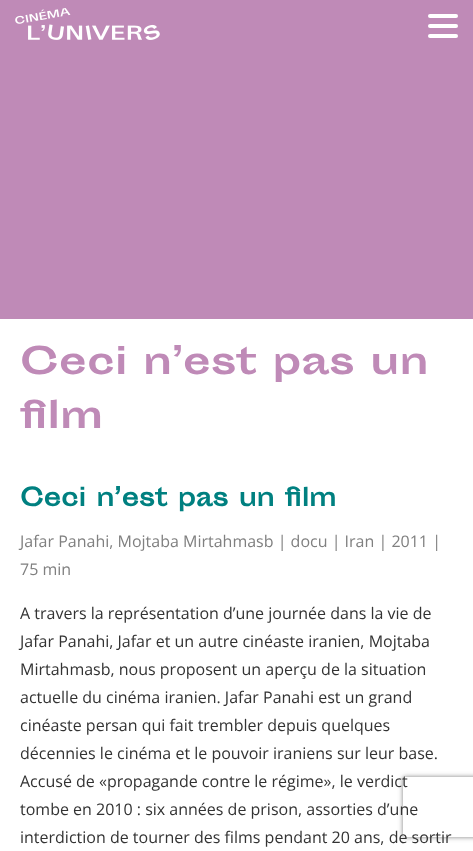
<svg xmlns="http://www.w3.org/2000/svg" width="473" height="851" viewBox="0 0 473 851">
  <defs>
    <clipPath id="clip1"><path d="M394 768H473V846H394ZM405 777H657C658 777 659 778 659 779V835C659 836 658 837 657 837H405C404 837 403 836 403 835V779C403 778 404 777 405 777Z" clip-rule="evenodd"/></clipPath>
    <filter id="blur1" x="-50%" y="-200%" width="200%" height="500%"><feGaussianBlur stdDeviation="2.5"/></filter>
  </defs>
  <rect width="100%" height="100%" fill="#ffffff"/>
  <rect x="0" y="0" width="473" height="319" fill="#bf8ab7"/>
  <image x="15" y="8" width="145" height="32" href="img1.png"/>
  <rect x="428" y="14" width="30" height="4" rx="2" fill="#ffffff"/>
  <rect x="428" y="24" width="30" height="4" rx="2" fill="#ffffff"/>
  <rect x="428" y="34" width="30" height="4" rx="2" fill="#ffffff"/>
  <text x="20" y="374" font-family="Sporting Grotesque" font-size="36" font-weight="bold" fill="#bf8ab7">Ceci n’est pas un</text>
  <text x="20" y="428" font-family="Sporting Grotesque" font-size="36" font-weight="bold" fill="#bf8ab7">film</text>
  <text x="20" y="506" font-family="'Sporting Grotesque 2'" font-size="24" font-weight="bold" fill="#008080">Ceci n’est pas un film</text>
  <text x="20" y="547" font-family="Open Sans" font-size="16" fill="#808080">Jafar Panahi, Mojtaba Mirtahmasb | docu | Iran | 2011 |</text>
  <text x="20" y="575" font-family="Open Sans" font-size="16" fill="#808080">75 min</text>
  <text x="20" y="619" font-family="Open Sans" font-size="16" fill="#333333">A travers la représentation d’une journée dans la vie de</text>
  <text x="20" y="647" font-family="Open Sans" font-size="16" fill="#333333">Jafar Panahi, Jafar et un autre cinéaste iranien, Mojtaba</text>
  <text x="20" y="675" font-family="Open Sans" font-size="16" fill="#333333">Mirtahmasb, nous proposent un aperçu de la situation</text>
  <text x="20" y="703" font-family="Open Sans" font-size="16" fill="#333333">actuelle du cinéma iranien. Jafar Panahi est un grand</text>
  <text x="20" y="731" font-family="Open Sans" font-size="16" fill="#333333">cinéaste persan qui fait trembler depuis quelques</text>
  <text x="20" y="759" font-family="Open Sans" font-size="16" fill="#333333">décennies le cinéma et le pouvoir iraniens sur leur base.</text>
  <g clip-path="url(#clip1)">
    <rect x="403" y="777" width="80" height="60" rx="2" fill="#808080" filter="url(#blur1)"/>
  </g>
  <text x="20" y="787" font-family="Open Sans" font-size="16" fill="#333333">Accusé de «propagande contre le régime», le verdict</text>
  <text x="20" y="815" font-family="Open Sans" font-size="16" fill="#333333">tombe en 2010 : six années de prison, assorties d’une</text>
  <text x="20" y="843" font-family="Open Sans" font-size="16" fill="#333333">interdiction de tourner des films pendant 20 ans, de sortir</text>
</svg>
